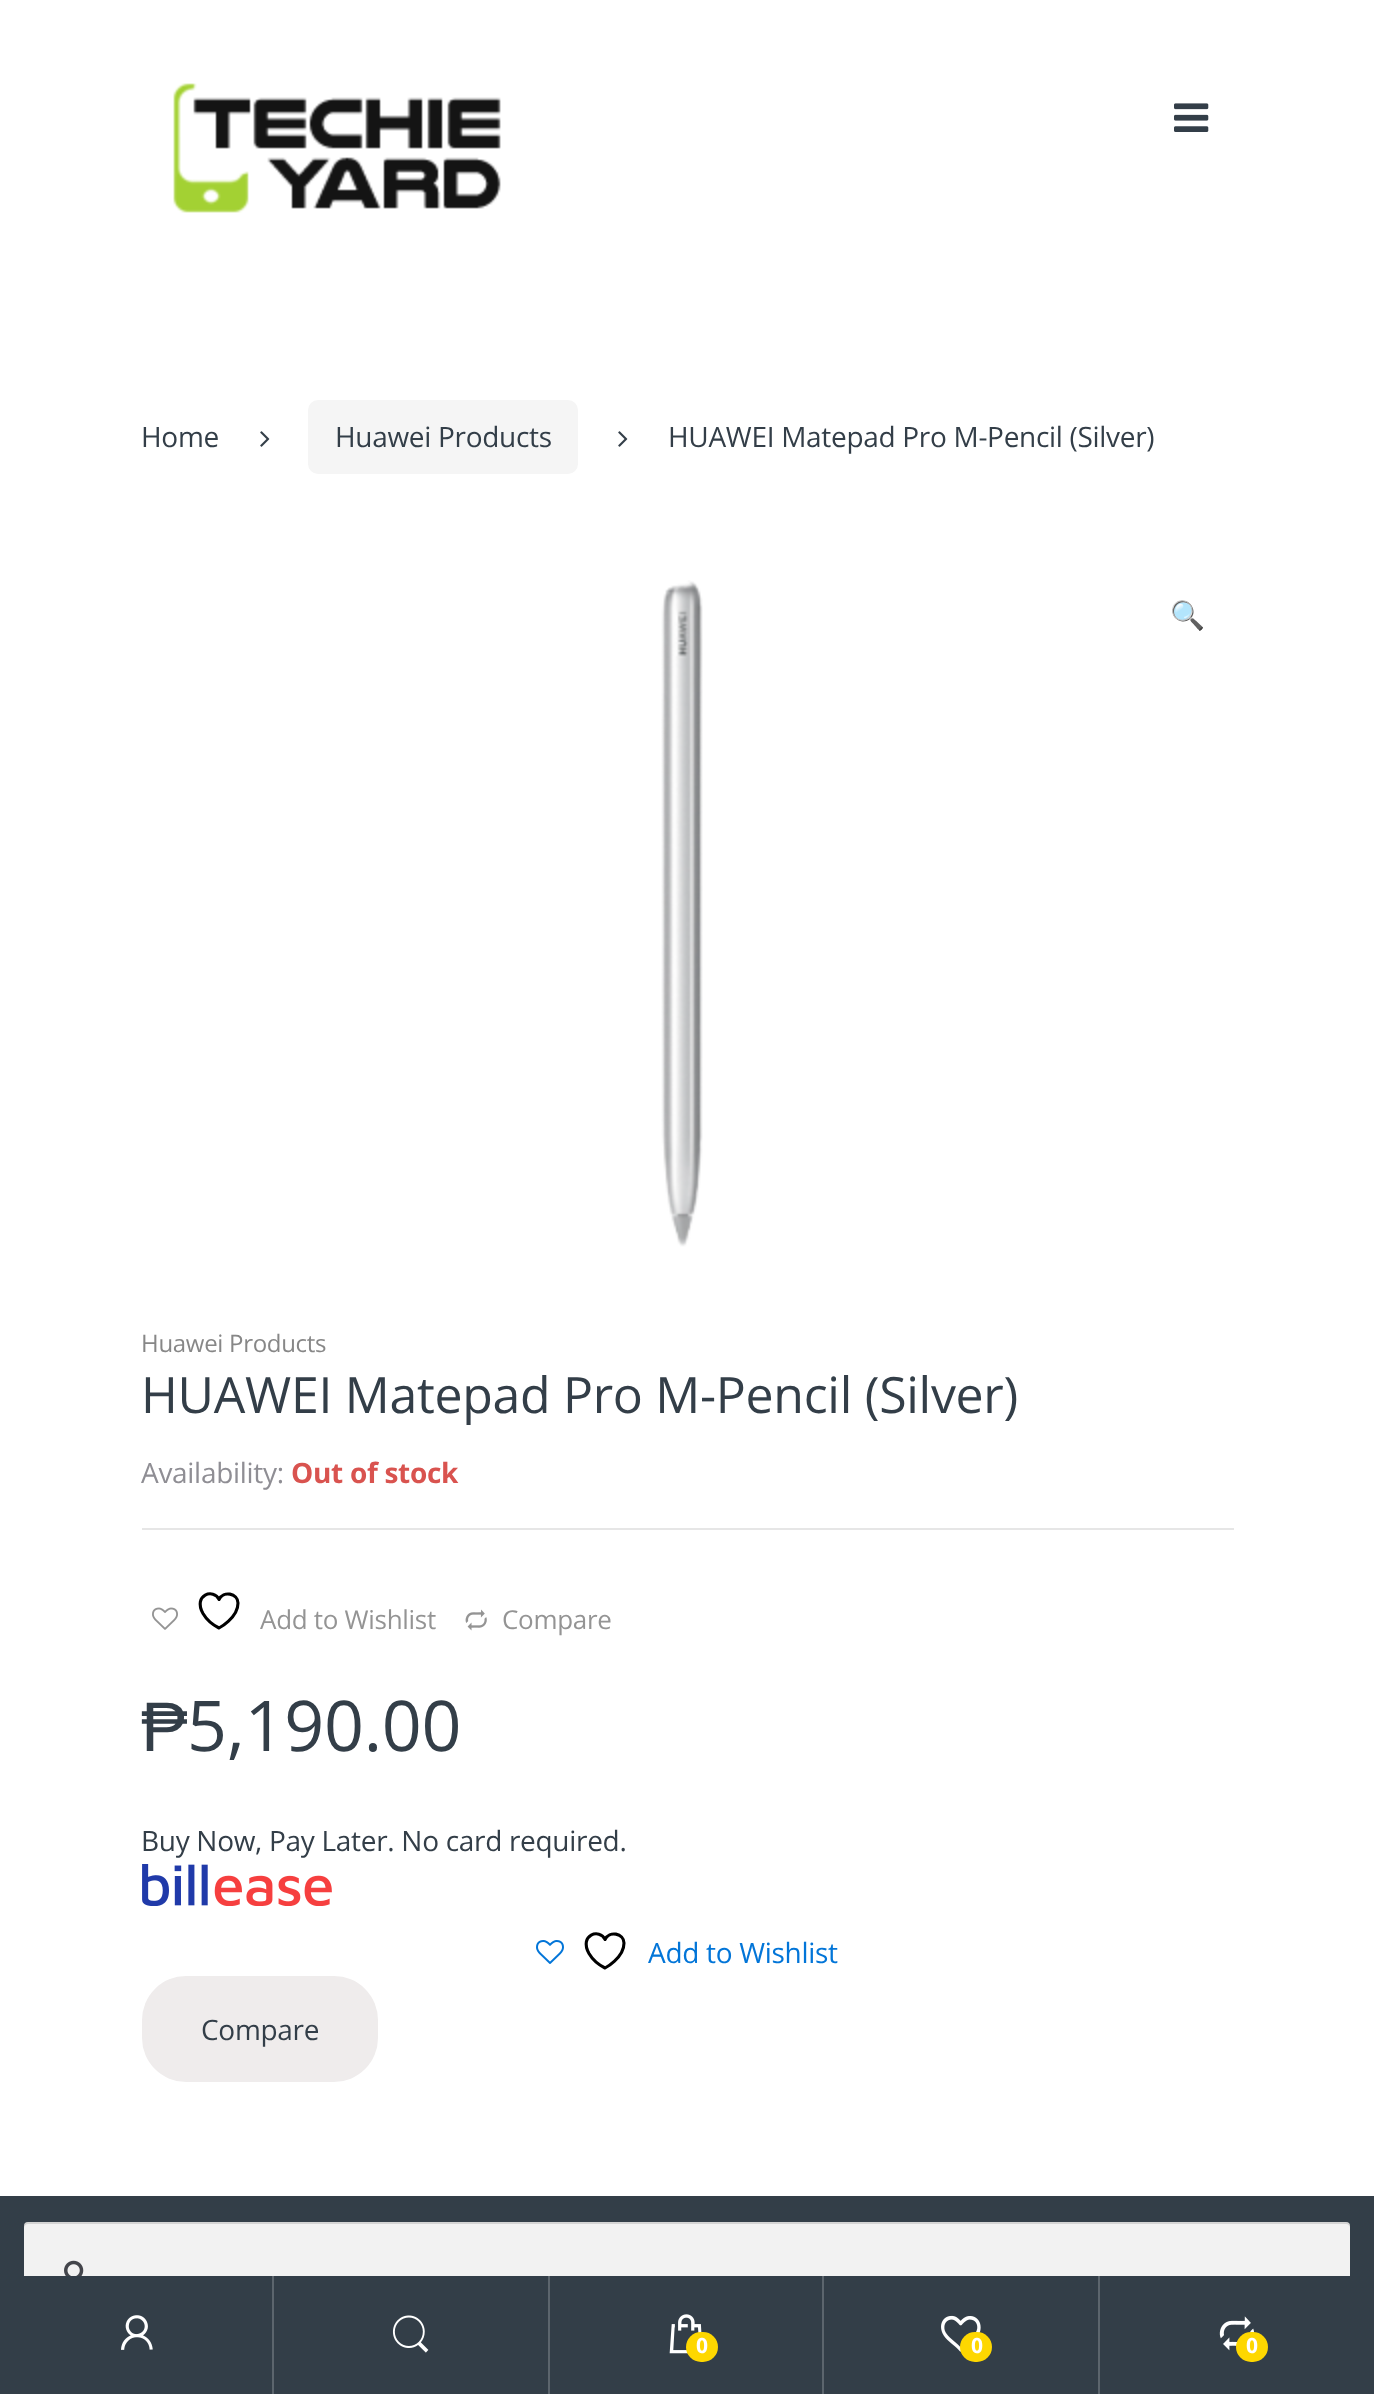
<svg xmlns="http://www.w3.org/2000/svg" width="1374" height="2394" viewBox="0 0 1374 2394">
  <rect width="100%" height="100%" fill="#ffffff"/>
  <image x="173" y="83" width="328" height="130" href="img1.png"/>
  <image x="1174" y="103" width="35" height="29" href="img2.png"/>
  <text x="141" y="447" font-family="Open Sans" font-size="28" letter-spacing="-0.3" fill="#333e48">Home</text>
  <image x="260" y="431" width="10" height="16" href="img3.png"/>
  <rect x="308" y="400" width="270" height="74" rx="10" fill="#f5f5f5"/>
  <text x="335" y="447" font-family="Open Sans" font-size="28" letter-spacing="-0.3" fill="#333e48">Huawei Products</text>
  <image x="618" y="431" width="10" height="16" href="img3.png"/>
  <text x="668" y="447" font-family="Open Sans" font-size="28" letter-spacing="-0.3" fill="#333e48">HUAWEI Matepad Pro M-Pencil (Silver)</text>
  <image x="661" y="580" width="42" height="667" href="img4.png"/>
  <text x="1170" y="625" font-family="Noto Color Emoji" font-size="28" letter-spacing="-0.3" fill="#0275d8">🔍</text>
  <text x="141" y="1352" font-family="Open Sans" font-size="24" letter-spacing="-0.3" fill="#878787">Huawei Products</text>
  <text x="141" y="1413" font-family="Open Sans" font-size="50" letter-spacing="-0.3" fill="#333e48">HUAWEI Matepad Pro M-Pencil (Silver)</text>
  <text x="141" y="1483" font-family="Open Sans" font-size="28" letter-spacing="-0.3" fill="#8f8e94">Availability:</text>
  <text x="291" y="1483" font-family="Open Sans" font-size="28" font-weight="bold" letter-spacing="-0.3" fill="#d9534f">Out of stock</text>
  <rect x="142" y="1528" width="1092" height="2" fill="#e6e6e6"/>
  <image x="152" y="1607" width="26" height="23" href="img5.png"/>
  <path d="M238 1603C238 1593 223 1590.5 219 1599.5C214 1588 192.5 1594.5 203 1613.5C206.5 1619.5 213 1625 219 1628C219 1628 238 1618 238 1603Z" fill="none" stroke="#000000" stroke-width="3.1" stroke-linecap="round" stroke-linejoin="round"/>
  <text x="260" y="1629" font-family="Open Sans" font-size="26" letter-spacing="-0.3" fill="#949494">Add to Wishlist</text>
  <image x="465" y="1609" width="22" height="22" href="img6.png"/>
  <text x="502" y="1629" font-family="Open Sans" font-size="26" letter-spacing="-0.3" fill="#949494">Compare</text>
  <text x="141" y="1751" font-family="Liberation Sans" font-size="70" letter-spacing="-0.3" fill="#333e48">₱</text>
  <text x="187" y="1751" font-family="Open Sans" font-size="70" letter-spacing="-0.3" fill="#333e48">5,190.00</text>
  <text x="141" y="1851" font-family="Open Sans" font-size="28" letter-spacing="-0.3" fill="#333e48">Buy Now, Pay Later. No card required.</text>
  <image x="142" y="1864" width="190" height="42" href="img7.png"/>
  <image x="536" y="1940" width="28" height="24" href="img8.png"/>
  <path d="M624 1943C624 1933 609 1930.5 605 1939.5C600 1928 578.5 1934.5 589 1953.5C592.5 1959.5 599 1965 605 1968C605 1968 624 1958 624 1943Z" fill="none" stroke="#000000" stroke-width="3.1" stroke-linecap="round" stroke-linejoin="round"/>
  <text x="648" y="1963" font-family="Open Sans" font-size="28" letter-spacing="-0.3" fill="#0275d8">Add to Wishlist</text>
  <rect x="142" y="1976" width="236" height="106" rx="44" fill="#efecec"/>
  <text x="201" y="2040" font-family="Open Sans" font-size="28" letter-spacing="-0.3" fill="#333e48">Compare</text>
  <rect x="0" y="2196" width="1374" height="80" fill="#333e48"/>
  <rect x="24" y="2222" width="1326" height="102" rx="4" fill="#f2f2f2"/>
  <path d="M28 2224H1346C1348 2224 1350 2226 1350 2228C1350 2225 1350 2222 1346 2222H28C24 2222 24 2225 24 2228C24 2226 26 2224 28 2224Z" fill="#000000" fill-opacity="0.12"/>
  <image x="64" y="2260" width="20" height="16" href="img9.png"/>
  <rect x="274" y="2276" width="274" height="118" fill="#333e48"/>
  <rect x="548" y="2276" width="2" height="118" fill="#5c656d"/>
  <image x="392" y="2315" width="37" height="38" href="img10.png"/>
  <rect x="0" y="2276" width="272" height="118" fill="#333e48"/>
  <rect x="272" y="2276" width="2" height="118" fill="#5c656d"/>
  <image x="121" y="2315" width="32" height="35" href="img11.png"/>
  <rect x="550" y="2276" width="272" height="118" fill="#333e48"/>
  <rect x="822" y="2276" width="2" height="118" fill="#5c656d"/>
  <image x="669" y="2314" width="33" height="40" href="img12.png"/>
  <rect x="686" y="2332" width="32" height="30" rx="15" fill="#fed700"/>
  <text x="696" y="2353" font-family="Open Sans" font-size="21" font-weight="bold" letter-spacing="-0.3" fill="#ffffff">0</text>
  <rect x="824" y="2276" width="274" height="118" fill="#333e48"/>
  <rect x="1098" y="2276" width="2" height="118" fill="#5c656d"/>
  <image x="941" y="2315" width="40" height="37" href="img13.png"/>
  <rect x="960" y="2332" width="32" height="30" rx="15" fill="#fed700"/>
  <text x="971" y="2353" font-family="Open Sans" font-size="21" font-weight="bold" letter-spacing="-0.3" fill="#ffffff">0</text>
  <rect x="1100" y="2276" width="274" height="118" fill="#333e48"/>
  <image x="1219" y="2316" width="36" height="35" href="img14.png"/>
  <rect x="1236" y="2332" width="32" height="30" rx="15" fill="#fed700"/>
  <text x="1246" y="2353" font-family="Open Sans" font-size="21" font-weight="bold" letter-spacing="-0.3" fill="#ffffff">0</text>
</svg>
